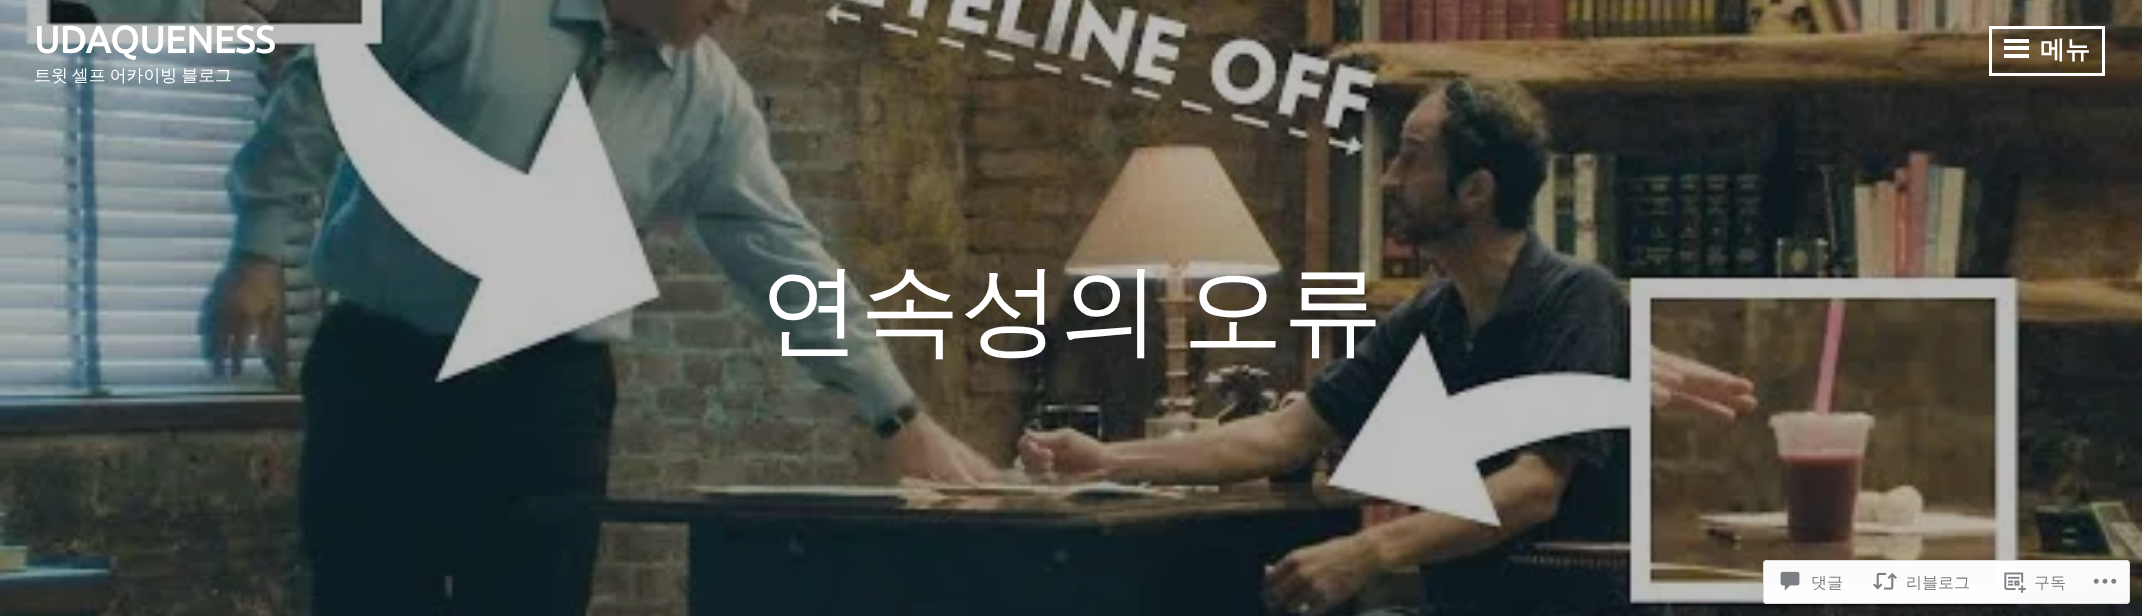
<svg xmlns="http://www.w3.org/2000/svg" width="2142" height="616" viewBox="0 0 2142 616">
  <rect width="100%" height="100%" fill="#ffffff"/>
  <image x="0" y="0" width="2142" height="616" href="img1.png"/>
  <text x="34" y="53" font-family="Ubuntu" font-size="37.5" font-weight="bold" fill="#ffffff">UDAQUENESS</text>
  <text x="34" y="81" word-spacing="-1" font-family="WenQuanYi Zen Hei" font-size="16.9" font-weight="500" fill="#ffffff">트윗 셀프 어카이빙 블로그</text>
  <rect x="1990.5" y="27.5" width="113" height="47" fill="none" stroke="#ffffff" stroke-width="3"/>
  <rect x="2004" y="46" width="25" height="4" fill="#ffffff"/>
  <rect x="2004" y="39" width="25" height="4" fill="#ffffff"/>
  <rect x="2004" y="54" width="25" height="4" fill="#ffffff"/>
  <text x="2040" y="58" font-family="WenQuanYi Zen Hei" font-size="25" font-weight="bold" fill="#ffffff">메뉴</text>
  <text x="760" y="344" word-spacing="-7" font-family="WenQuanYi Zen Hei" font-size="100" font-weight="500" fill="#ffffff">연속성의 오류</text>
  <rect x="1763" y="560" width="367" height="44" rx="4" fill="#ffffff" fill-opacity="0.98"/>
  <rect x="1763.5" y="560.5" width="366" height="43" rx="3.5" fill="none" stroke="#dcdcde" stroke-opacity="0.98"/>
  <image x="1780" y="571" width="20" height="20" href="img2.png"/>
  <text x="1811" y="588" font-family="WenQuanYi Zen Hei" font-size="16" font-weight="500" fill="#7b7f84">댓글</text>
  <image x="1873" y="572" width="24" height="18" href="img3.png"/>
  <text x="1906" y="588" font-family="WenQuanYi Zen Hei" font-size="16" font-weight="500" fill="#7b7f84">리블로그</text>
  <image x="2004" y="572" width="22" height="21" href="img4.png"/>
  <text x="2034" y="588" font-family="WenQuanYi Zen Hei" font-size="16" font-weight="500" fill="#7b7f84">구독</text>
  <image x="2093" y="578" width="24" height="6" href="img5.png"/>
</svg>
